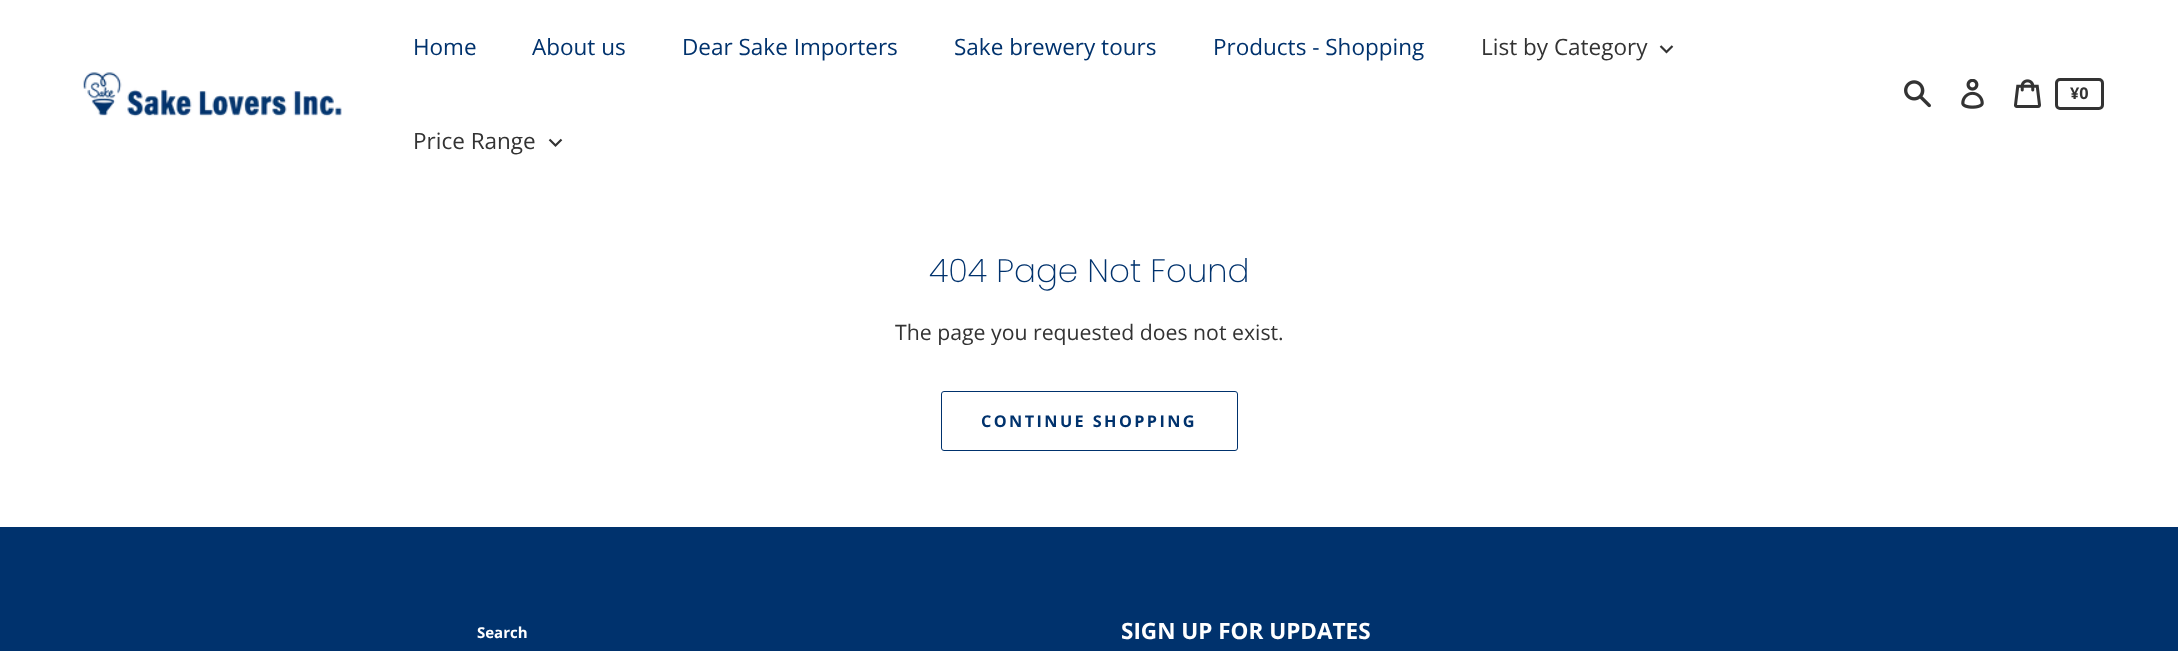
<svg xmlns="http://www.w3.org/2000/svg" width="2178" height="651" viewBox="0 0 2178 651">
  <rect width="100%" height="100%" fill="#ffffff"/>
  <image x="83" y="72" width="259" height="45" href="img1.png"/>
  <text x="413" y="55" font-family="Open Sans" font-size="22.5" fill="#00326d">Home</text>
  <text x="532" y="55" font-family="Open Sans" font-size="22.5" fill="#00326d">About us</text>
  <text x="682" y="55" font-family="Open Sans" font-size="22.5" fill="#00326d">Dear Sake Importers</text>
  <text x="954" y="55" font-family="Open Sans" font-size="22.5" fill="#00326d">Sake brewery tours</text>
  <text x="1213" y="55" font-family="Open Sans" font-size="22.5" fill="#00326d">Products - Shopping</text>
  <text x="1481" y="55" font-family="Open Sans" font-size="22.5" fill="#333333">List by Category</text>
  <path d="M1660.5 46L1666.5 52L1672.5 46" fill="none" stroke="#333333" stroke-width="2.2"/>
  <text x="413" y="149" font-family="Open Sans" font-size="22.5" fill="#333333">Price Range</text>
  <path d="M549.5 139.5L555.5 145.5L561.5 139.5" fill="none" stroke="#333333" stroke-width="2.2"/>
  <image x="1904" y="80" width="27" height="28" href="img2.png"/>
  <image x="1961" y="79" width="23" height="30" href="img3.png"/>
  <image x="2014" y="79" width="27" height="29" href="img4.png"/>
  <rect x="2056.5" y="79.5" width="46" height="29" rx="3.5" fill="none" stroke="#333333" stroke-width="3"/>
  <text x="2070" y="99" font-family="Open Sans" font-size="16.25" font-weight="bold" fill="#333333">¥0</text>
  <text x="929" y="282" font-family="Poppins" font-size="32.5" font-weight="300" fill="#00326d">404 Page Not Found</text>
  <text x="895" y="340" font-family="Open Sans" font-size="21.25" fill="#333333">The page you requested does not exist.</text>
  <rect x="941.5" y="391.5" width="296" height="59" rx="2.5" fill="none" stroke="#00326d"/>
  <text x="981" y="427" font-family="Open Sans" font-size="16.25" font-weight="bold" letter-spacing="2.4" fill="#00326d">CONTINUE SHOPPING</text>
  <rect x="0" y="527" width="2178" height="124" fill="#00326d"/>
  <text x="477" y="638" font-family="Open Sans" font-size="15" font-weight="bold" fill="#ffffff">Search</text>
  <text x="1121" y="639" font-family="Open Sans" font-size="22.5" font-weight="bold" fill="#ffffff">SIGN UP FOR UPDATES</text>
</svg>
